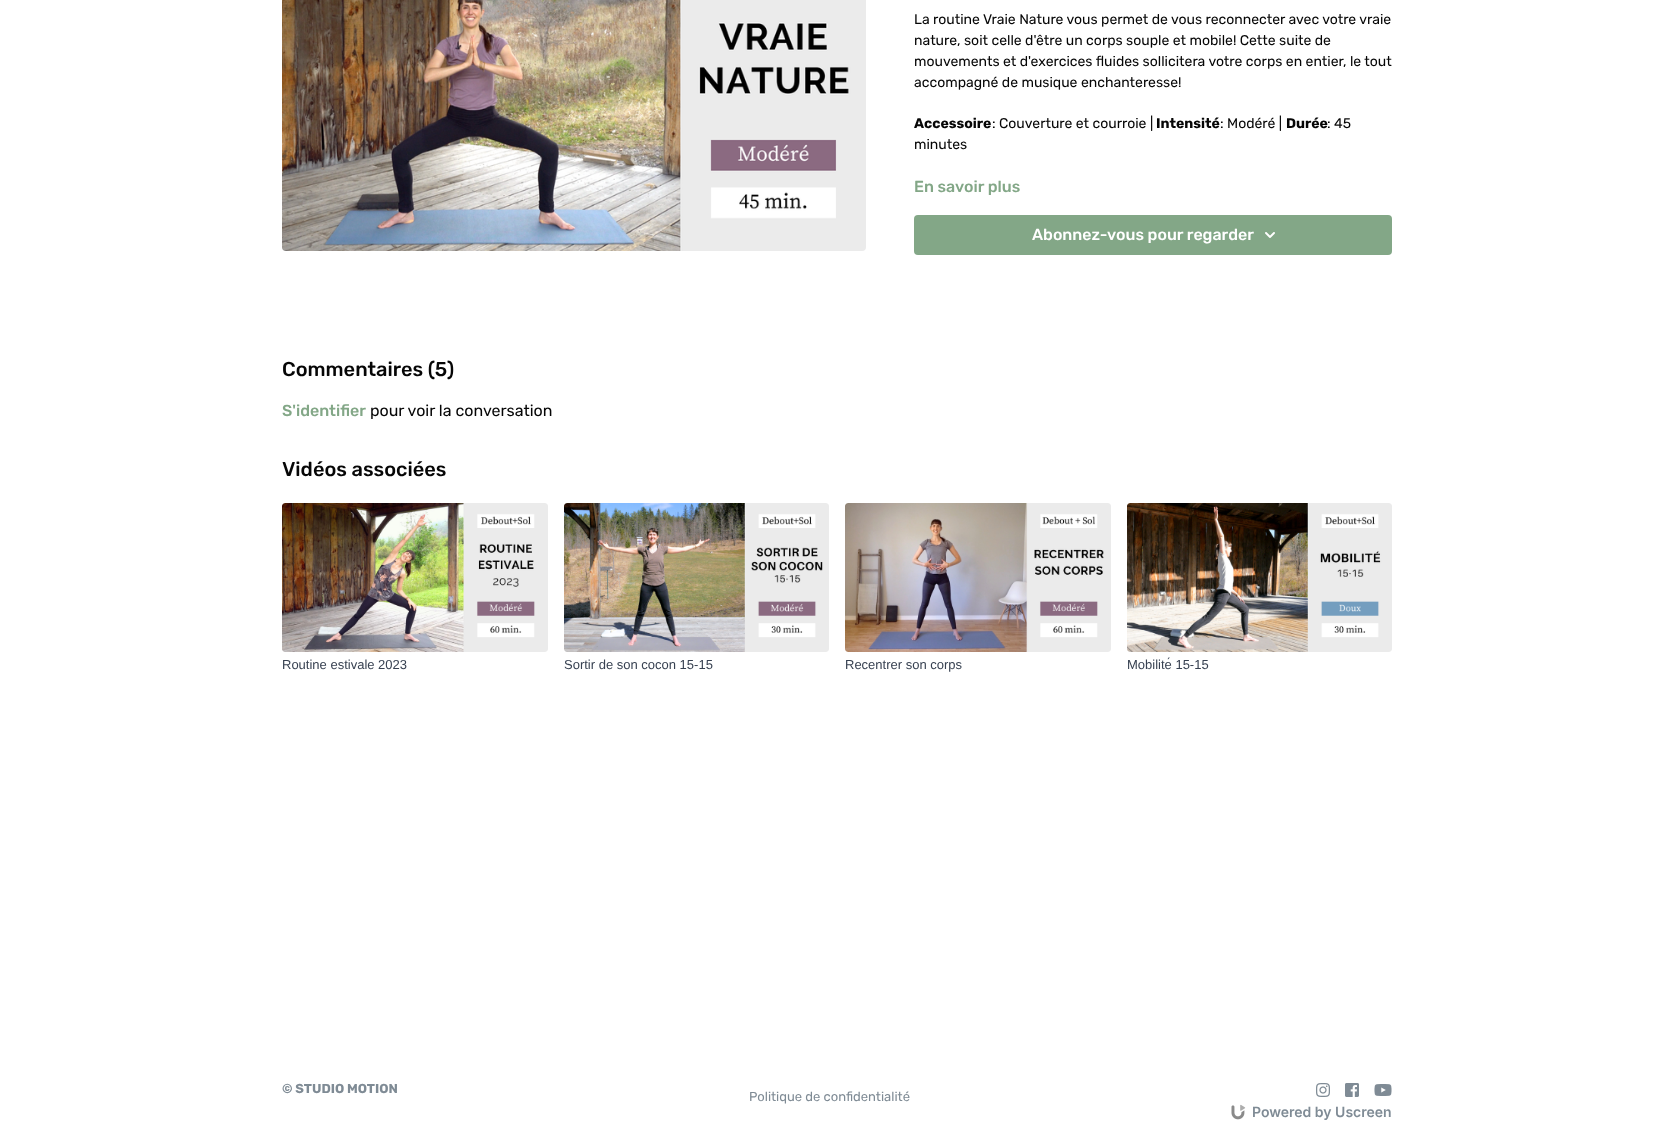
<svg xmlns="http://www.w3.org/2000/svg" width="1674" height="1141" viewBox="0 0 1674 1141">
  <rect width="100%" height="100%" fill="#ffffff"/>
  <image x="282" y="0" width="584" height="251" href="img1.png"/>
  <text x="914" y="24" font-family="Rubik" font-size="14" fill="#060606">La routine Vraie Nature vous permet de vous reconnecter avec votre vraie</text>
  <text x="914" y="45" font-family="Rubik" font-size="14" fill="#060606">nature, soit celle d'être un corps souple et mobile! Cette suite de</text>
  <text x="914" y="66" font-family="Rubik" font-size="14" fill="#060606">mouvements et d'exercices fluides sollicitera votre corps en entier, le tout</text>
  <text x="914" y="87" font-family="Rubik" font-size="14" fill="#060606">accompagné de musique enchanteresse!</text>
  <text x="914" y="128" font-family="Rubik" font-size="14" font-weight="bold" fill="#060606">Accessoire</text>
  <text x="992" y="128" font-family="Rubik" font-size="14" fill="#060606">: Couverture et courroie |</text>
  <text x="1156" y="128" font-family="Rubik" font-size="14" font-weight="bold" fill="#060606">Intensité</text>
  <text x="1220" y="128" font-family="Rubik" font-size="14" fill="#060606">: Modéré |</text>
  <text x="1286" y="128" font-family="Rubik" font-size="14" font-weight="bold" fill="#060606">Durée</text>
  <text x="1327" y="128" font-family="Rubik" font-size="14" fill="#060606">: 45</text>
  <text x="914" y="149" font-family="Rubik" font-size="14" fill="#060606">minutes</text>
  <text x="914" y="192" font-family="Rubik" font-size="16" font-weight="500" fill="#83a787">En savoir plus</text>
  <rect x="914" y="215" width="478" height="40" rx="4" fill="#83a787"/>
  <text x="1032" y="240" font-family="Rubik" font-size="16" font-weight="500" fill="#ffffff">Abonnez-vous pour regarder</text>
  <image x="1265" y="232" width="10" height="6" href="img2.png"/>
  <text x="282" y="376" font-family="Rubik" font-size="20" font-weight="500" fill="#060606">Commentaires (5)</text>
  <text x="282" y="416" font-family="Rubik" font-size="16" font-weight="500" fill="#83a787">S'identifier</text>
  <text x="370" y="416" font-family="Rubik" font-size="16" fill="#060606">pour voir la conversation</text>
  <text x="282" y="476" font-family="Rubik" font-size="20" font-weight="500" fill="#060606">Vidéos associées</text>
  <image x="282" y="503" width="266" height="149" href="img3.png"/>
  <text x="282" y="669" font-family="Liberation Sans" font-size="13" fill="#374151">Routine estivale 2023</text>
  <image x="564" y="503" width="265" height="149" href="img4.png"/>
  <text x="564" y="669" font-family="Liberation Sans" font-size="13" fill="#374151">Sortir de son cocon 15-15</text>
  <image x="845" y="503" width="266" height="149" href="img5.png"/>
  <text x="845" y="669" font-family="Liberation Sans" font-size="13" fill="#374151">Recentrer son corps</text>
  <image x="1127" y="503" width="265" height="149" href="img6.png"/>
  <text x="1127" y="669" font-family="Liberation Sans" font-size="13" fill="#374151">Mobilité 15-15</text>
  <text x="282" y="1093" font-family="Rubik" font-size="13" font-weight="bold" fill="#7f8b95">© STUDIO MOTION</text>
  <text x="749" y="1101" font-family="Rubik" font-size="13" fill="#7f8b95">Politique de confidentialité</text>
  <image x="1316" y="1083" width="14" height="14" href="img7.png"/>
  <image x="1345" y="1083" width="14" height="14" href="img8.png"/>
  <image x="1374" y="1084" width="18" height="12" href="img9.png"/>
  <image x="1231" y="1104" width="15" height="16" href="img10.png"/>
  <text x="1252" y="1117" font-family="Inter" font-size="14" font-weight="600" fill="#7f8b95">Powered by Uscreen</text>
</svg>
